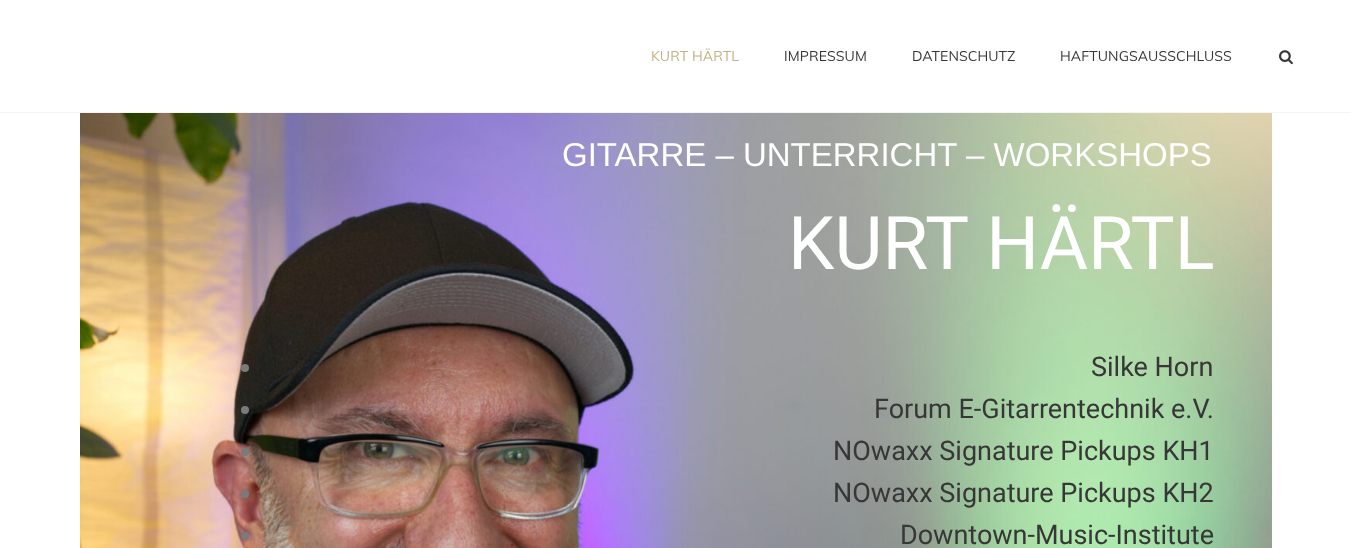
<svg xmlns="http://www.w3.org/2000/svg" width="1351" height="548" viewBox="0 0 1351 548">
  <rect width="100%" height="100%" fill="#ffffff"/>
  <rect x="0" y="112" width="1351" height="1" fill="#f4f4f4"/>
  <text x="651" y="61" font-family="Muli" font-size="14" letter-spacing="0.1" fill="#c0b283">KURT HÄRTL</text>
  <text x="784" y="61" font-family="Muli" font-size="14" letter-spacing="0.1" fill="#373737">IMPRESSUM</text>
  <text x="912" y="61" font-family="Muli" font-size="14" letter-spacing="0.1" fill="#373737">DATENSCHUTZ</text>
  <text x="1060" y="61" font-family="Muli" font-size="14" letter-spacing="0.1" fill="#373737">HAFTUNGSAUSSCHLUSS</text>
  <image x="1279" y="50" width="14" height="15" href="img1.png"/>
  <image x="80" y="113" width="1192" height="435" href="img2.png"/>
  <text x="562" y="166" font-family="Liberation Sans" font-size="33" fill="#ffffff">GITARRE – UNTERRICHT – WORKSHOPS</text>
  <text x="788" y="269" font-family="Roboto" font-size="74" fill="#ffffff">KURT HÄRTL</text>
  <circle cx="245" cy="368" r="4" fill="#7a7a7a"/>
  <text x="1091" y="376" font-family="Roboto" font-size="27" fill="#373737">Silke Horn</text>
  <circle cx="245" cy="410" r="4" fill="#7a7a7a"/>
  <text x="874" y="418" font-family="Roboto" font-size="27" fill="#373737">Forum E-Gitarrentechnik e.V.</text>
  <circle cx="245" cy="452" r="4" fill="#7a7a7a"/>
  <text x="833" y="460" font-family="Roboto" font-size="27" fill="#373737">NOwaxx Signature Pickups KH1</text>
  <circle cx="245" cy="494" r="4" fill="#7a7a7a"/>
  <text x="833" y="502" font-family="Roboto" font-size="27" fill="#373737">NOwaxx Signature Pickups KH2</text>
  <circle cx="245" cy="536" r="4" fill="#7a7a7a"/>
  <text x="900" y="544" font-family="Roboto" font-size="27" fill="#373737">Downtown-Music-Institute</text>
</svg>
